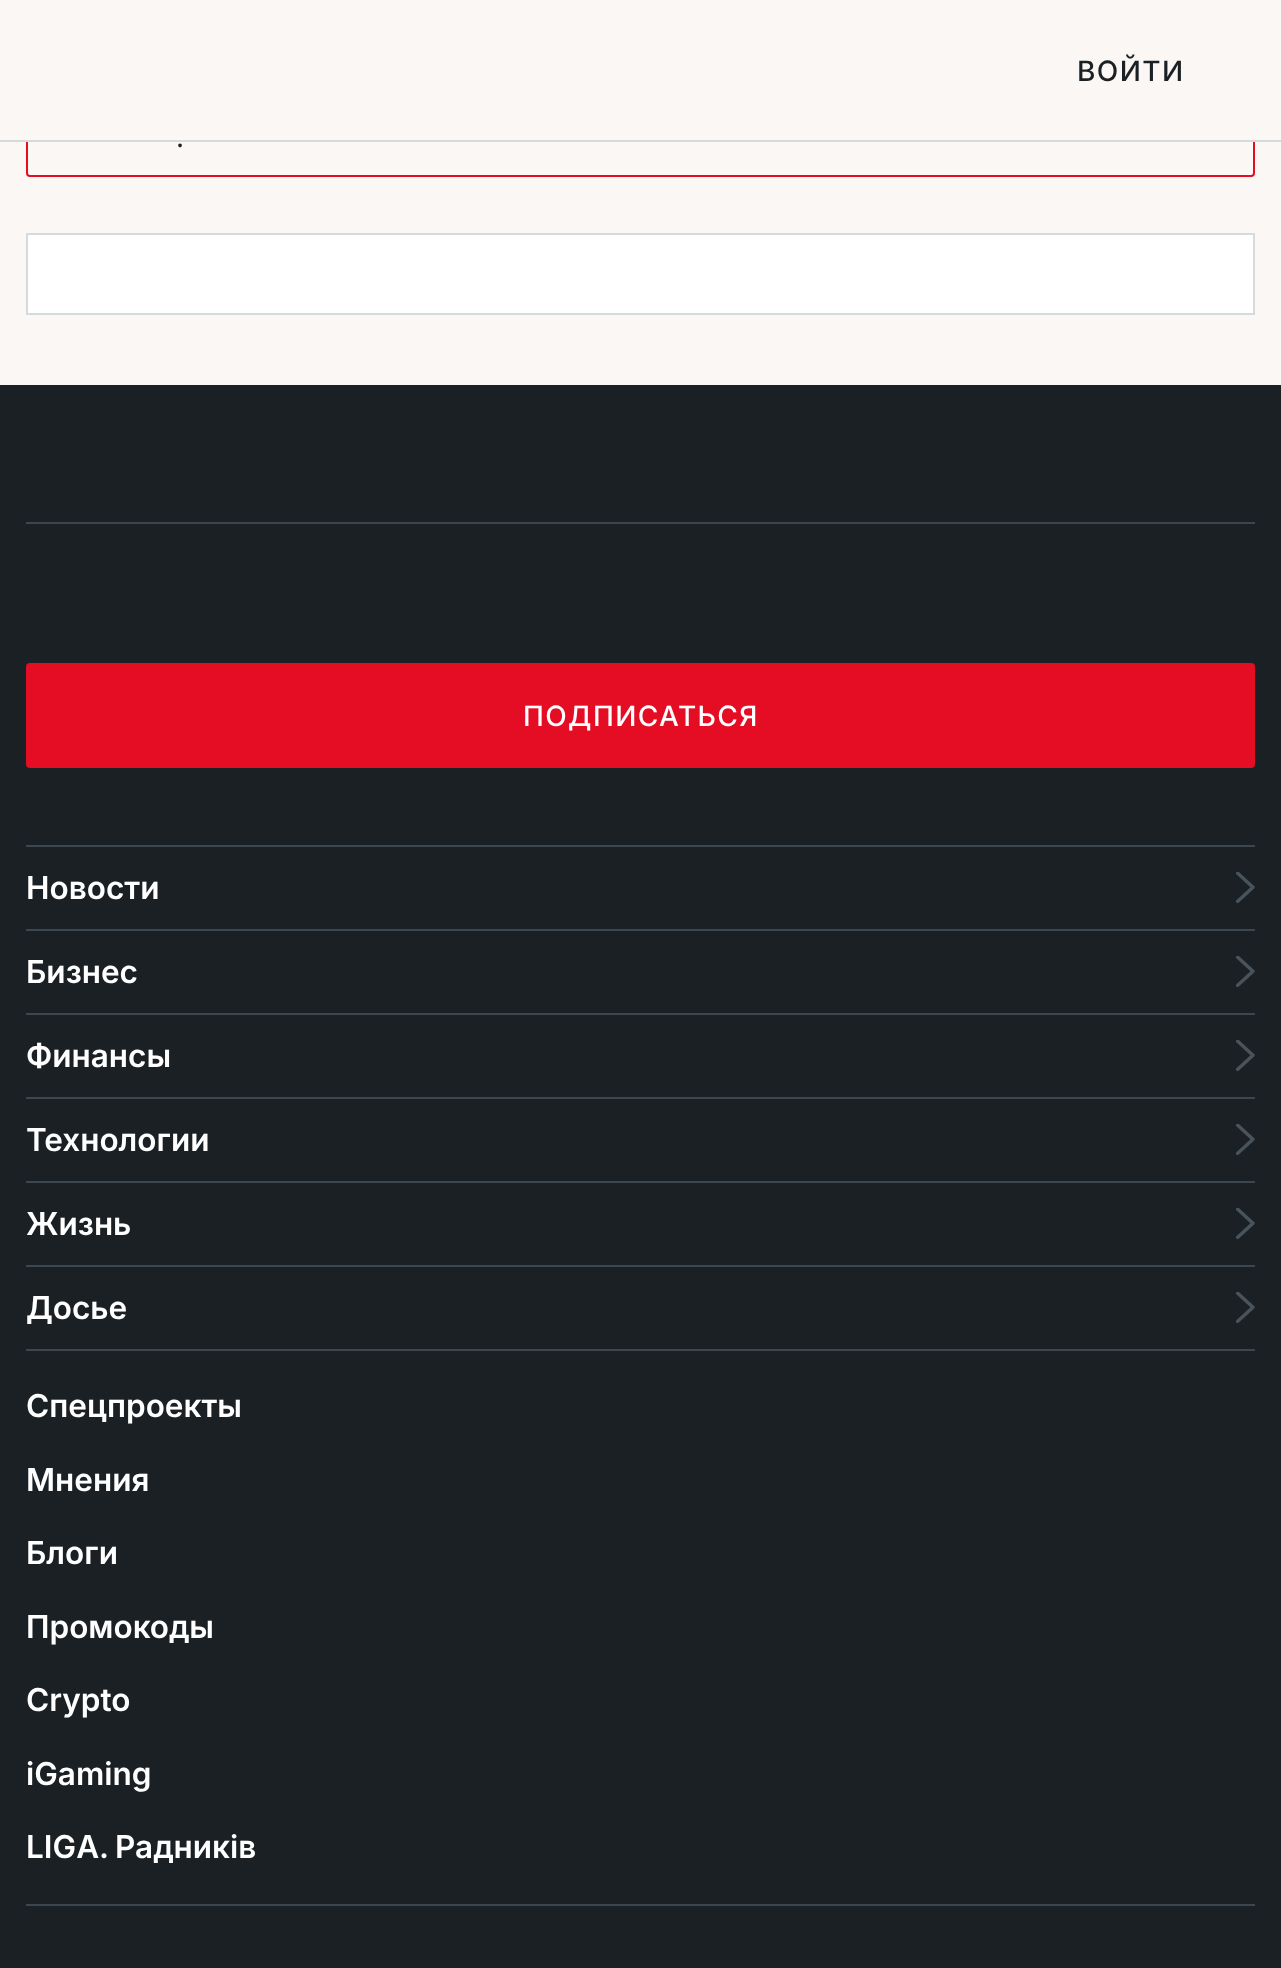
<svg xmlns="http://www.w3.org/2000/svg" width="1281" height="1968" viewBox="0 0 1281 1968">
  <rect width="100%" height="100%" fill="#faf7f4"/>
  <rect x="27" y="55" width="1227" height="121" rx="3" fill="none" stroke="#e40d24" stroke-width="2"/>
  <rect x="26" y="54" width="1229" height="86" fill="#faf7f4"/>
  <rect x="0" y="140" width="1281" height="2" fill="#d5dadd"/>
  <text x="1077" y="81" font-family="Inter" font-size="28" font-weight="500" letter-spacing="1.4" fill="#1a2024">ВОЙТИ</text>
  <text x="176" y="147" font-family="Inter" font-size="28" fill="#1a2024">.</text>
  <rect x="27" y="234" width="1227" height="80" fill="#ffffff" stroke="#d5dadd" stroke-width="2"/>
  <rect x="0" y="385" width="1281" height="1583" fill="#1a2024"/>
  <rect x="26" y="845" width="1229" height="2" fill="#3c464e"/>
  <rect x="26" y="522" width="1229" height="2" fill="#3c464e"/>
  <rect x="26" y="663" width="1229" height="105" rx="4" fill="#e40d24"/>
  <text x="523" y="726" font-family="Inter" font-size="28" font-weight="500" letter-spacing="1.4" fill="#ffffff">ПОДПИСАТЬСЯ</text>
  <rect x="26" y="929" width="1229" height="2" fill="#3c464e"/>
  <text x="26" y="899" font-family="Inter" font-size="31.5" font-weight="600" fill="#ffffff">Новости</text>
  <image x="1236" y="872" width="19" height="31" href="img1.png"/>
  <rect x="26" y="1013" width="1229" height="2" fill="#3c464e"/>
  <text x="26" y="983" font-family="Inter" font-size="31.5" font-weight="600" fill="#ffffff">Бизнес</text>
  <image x="1236" y="956" width="19" height="31" href="img1.png"/>
  <rect x="26" y="1097" width="1229" height="2" fill="#3c464e"/>
  <text x="26" y="1067" font-family="Inter" font-size="31.5" font-weight="600" fill="#ffffff">Финансы</text>
  <image x="1236" y="1040" width="19" height="31" href="img1.png"/>
  <rect x="26" y="1181" width="1229" height="2" fill="#3c464e"/>
  <text x="26" y="1151" font-family="Inter" font-size="31.5" font-weight="600" fill="#ffffff">Технологии</text>
  <image x="1236" y="1124" width="19" height="31" href="img1.png"/>
  <rect x="26" y="1265" width="1229" height="2" fill="#3c464e"/>
  <text x="26" y="1235" font-family="Inter" font-size="31.5" font-weight="600" fill="#ffffff">Жизнь</text>
  <image x="1236" y="1208" width="19" height="31" href="img1.png"/>
  <rect x="26" y="1349" width="1229" height="2" fill="#3c464e"/>
  <text x="26" y="1319" font-family="Inter" font-size="31.5" font-weight="600" fill="#ffffff">Досье</text>
  <image x="1236" y="1292" width="19" height="31" href="img1.png"/>
  <rect x="26" y="1904" width="1229" height="2" fill="#3c464e"/>
  <text x="26" y="1417" font-family="Inter" font-size="31.5" font-weight="600" fill="#ffffff">Спецпроекты</text>
  <text x="26" y="1491" font-family="Inter" font-size="31.5" font-weight="600" fill="#ffffff">Мнения</text>
  <text x="26" y="1564" font-family="Inter" font-size="31.5" font-weight="600" fill="#ffffff">Блоги</text>
  <text x="26" y="1638" font-family="Inter" font-size="31.5" font-weight="600" fill="#ffffff">Промокоды</text>
  <text x="26" y="1711" font-family="Inter" font-size="31.5" font-weight="600" fill="#ffffff">Crypto</text>
  <text x="26" y="1785" font-family="Inter" font-size="31.5" font-weight="600" fill="#ffffff">iGaming</text>
  <text x="26" y="1858" word-spacing="-2" font-family="Inter" font-size="31.5" font-weight="600" fill="#ffffff">LIGA. Радників</text>
</svg>
